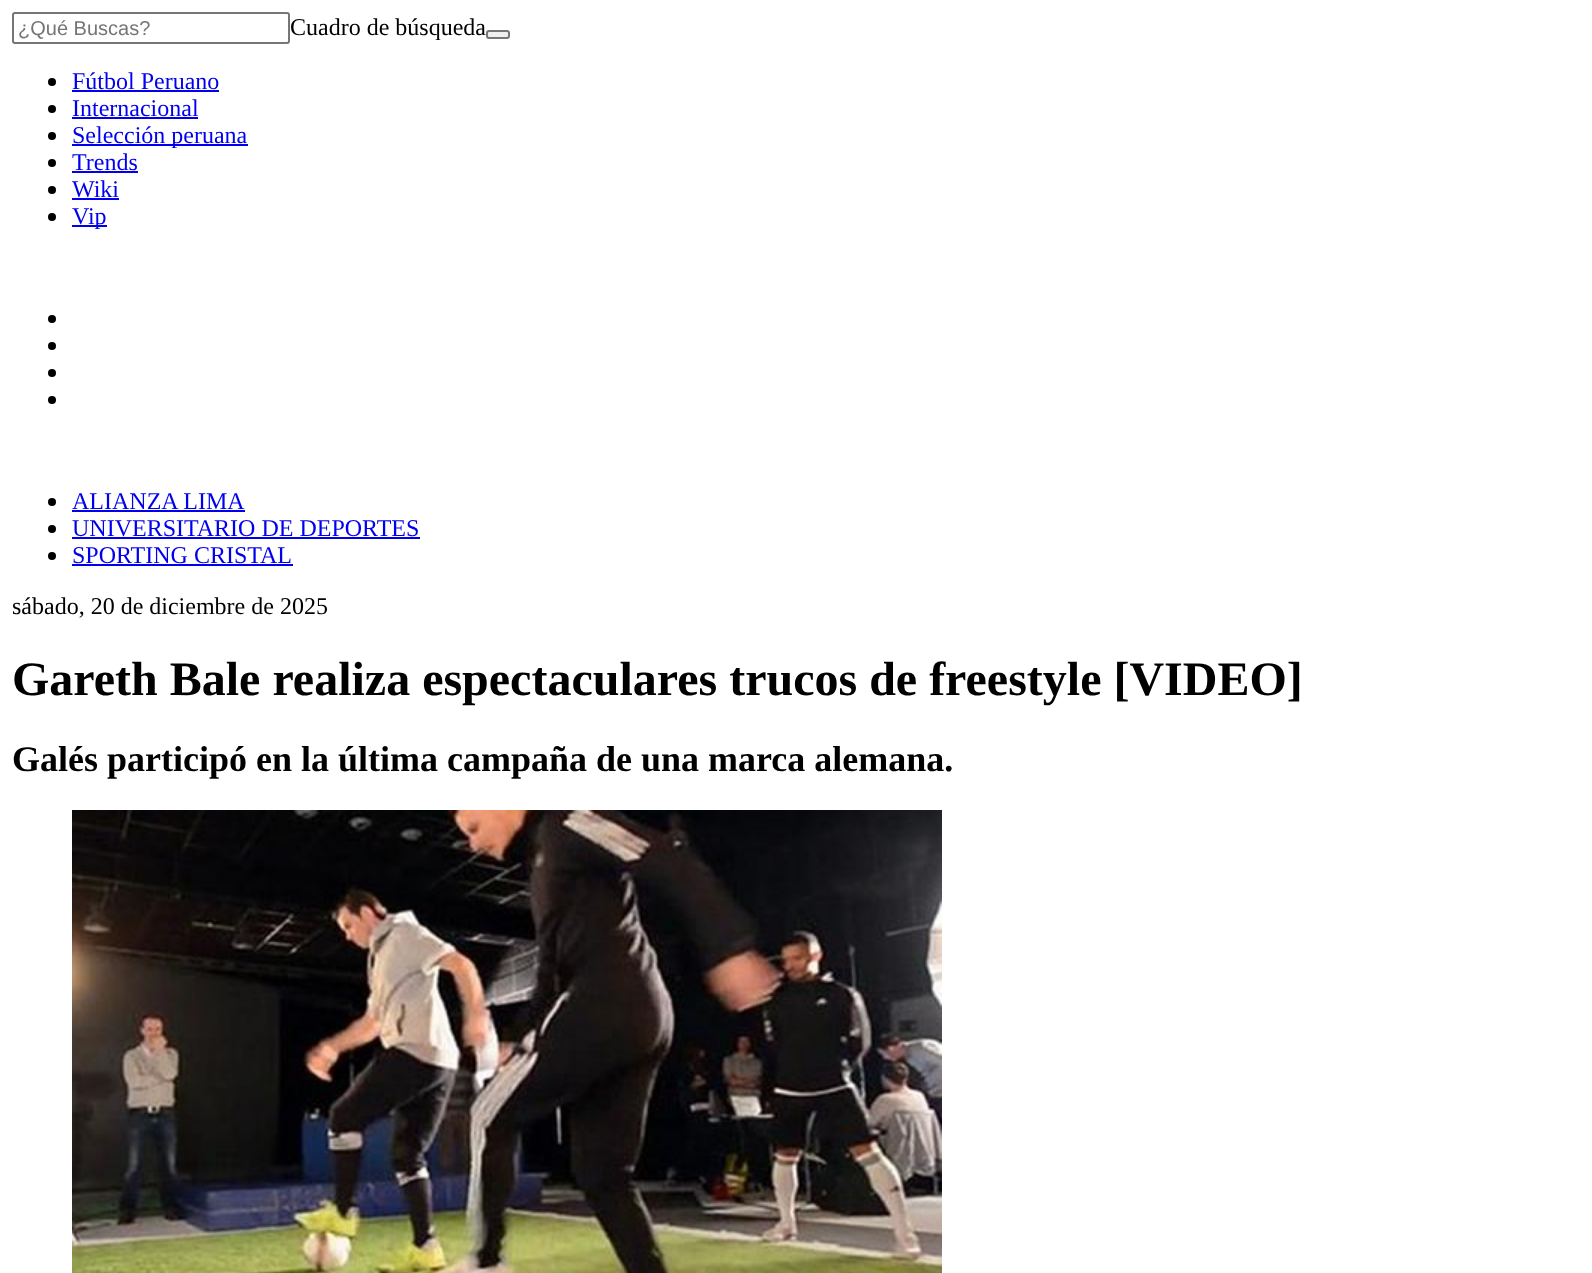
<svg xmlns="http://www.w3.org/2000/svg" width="1592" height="1273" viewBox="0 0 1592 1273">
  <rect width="100%" height="100%" fill="#ffffff"/>
  <rect x="13" y="13" width="276" height="30" rx="2" fill="none" stroke="#767676" stroke-width="2"/>
  <text x="18" y="35" font-family="Liberation Sans" font-size="20" fill="#757575">¿Qué Buscas?</text>
  <text x="290" y="35" font-family="Liberation Serif" font-size="24" fill="#000000">Cuadro de búsqueda</text>
  <rect x="487" y="31" width="22" height="7" rx="2" fill="#efefef" stroke="#767676" stroke-width="2"/>
  <circle cx="52" cy="82" r="4" fill="#000000"/>
  <text x="72" y="89" font-family="Liberation Serif" font-size="24" fill="#0000ee">Fútbol Peruano</text>
  <rect x="72" y="90" width="147" height="2" fill="#0000ee"/>
  <circle cx="52" cy="109" r="4" fill="#000000"/>
  <text x="72" y="116" font-family="Liberation Serif" font-size="24" fill="#0000ee">Internacional</text>
  <rect x="72" y="117" width="126" height="2" fill="#0000ee"/>
  <circle cx="52" cy="136" r="4" fill="#000000"/>
  <rect x="72" y="144" width="176" height="2" fill="#0000ee"/>
  <text x="72" y="143" font-family="Liberation Serif" font-size="24" fill="#0000ee">Selección peruana</text>
  <circle cx="52" cy="163" r="4" fill="#000000"/>
  <text x="72" y="170" font-family="Liberation Serif" font-size="24" fill="#0000ee">Trends</text>
  <rect x="72" y="171" width="66" height="2" fill="#0000ee"/>
  <circle cx="52" cy="190" r="4" fill="#000000"/>
  <text x="72" y="197" font-family="Liberation Serif" font-size="24" fill="#0000ee">Wiki</text>
  <rect x="72" y="198" width="47" height="2" fill="#0000ee"/>
  <circle cx="52" cy="217" r="4" fill="#000000"/>
  <rect x="72" y="225" width="35" height="2" fill="#0000ee"/>
  <text x="72" y="224" font-family="Liberation Serif" font-size="24" fill="#0000ee">Vip</text>
  <circle cx="52" cy="319" r="4" fill="#000000"/>
  <circle cx="52" cy="346" r="4" fill="#000000"/>
  <circle cx="52" cy="373" r="4" fill="#000000"/>
  <circle cx="52" cy="400" r="4" fill="#000000"/>
  <circle cx="52" cy="502" r="4" fill="#000000"/>
  <text x="72" y="509" font-family="Liberation Serif" font-size="24" fill="#0000ee">ALIANZA LIMA</text>
  <rect x="72" y="510" width="173" height="2" fill="#0000ee"/>
  <circle cx="52" cy="529" r="4" fill="#000000"/>
  <text x="72" y="536" font-family="Liberation Serif" font-size="24" fill="#0000ee">UNIVERSITARIO DE DEPORTES</text>
  <rect x="72" y="537" width="348" height="2" fill="#0000ee"/>
  <circle cx="52" cy="556" r="4" fill="#000000"/>
  <text x="72" y="563" font-family="Liberation Serif" font-size="24" fill="#0000ee">SPORTING CRISTAL</text>
  <rect x="72" y="564" width="221" height="2" fill="#0000ee"/>
  <text x="12" y="614" font-family="Liberation Serif" font-size="24" fill="#000000">sábado, 20 de diciembre de 2025</text>
  <text x="12" y="695" font-family="Liberation Serif" font-size="48" font-weight="bold" fill="#000000">Gareth Bale realiza espectaculares trucos de freestyle [VIDEO]</text>
  <text x="12" y="771" font-family="Liberation Serif" font-size="36" font-weight="bold" fill="#000000">Galés participó en la última campaña de una marca alemana.</text>
  <image x="72" y="810" width="870" height="463" href="img1.png"/>
</svg>
